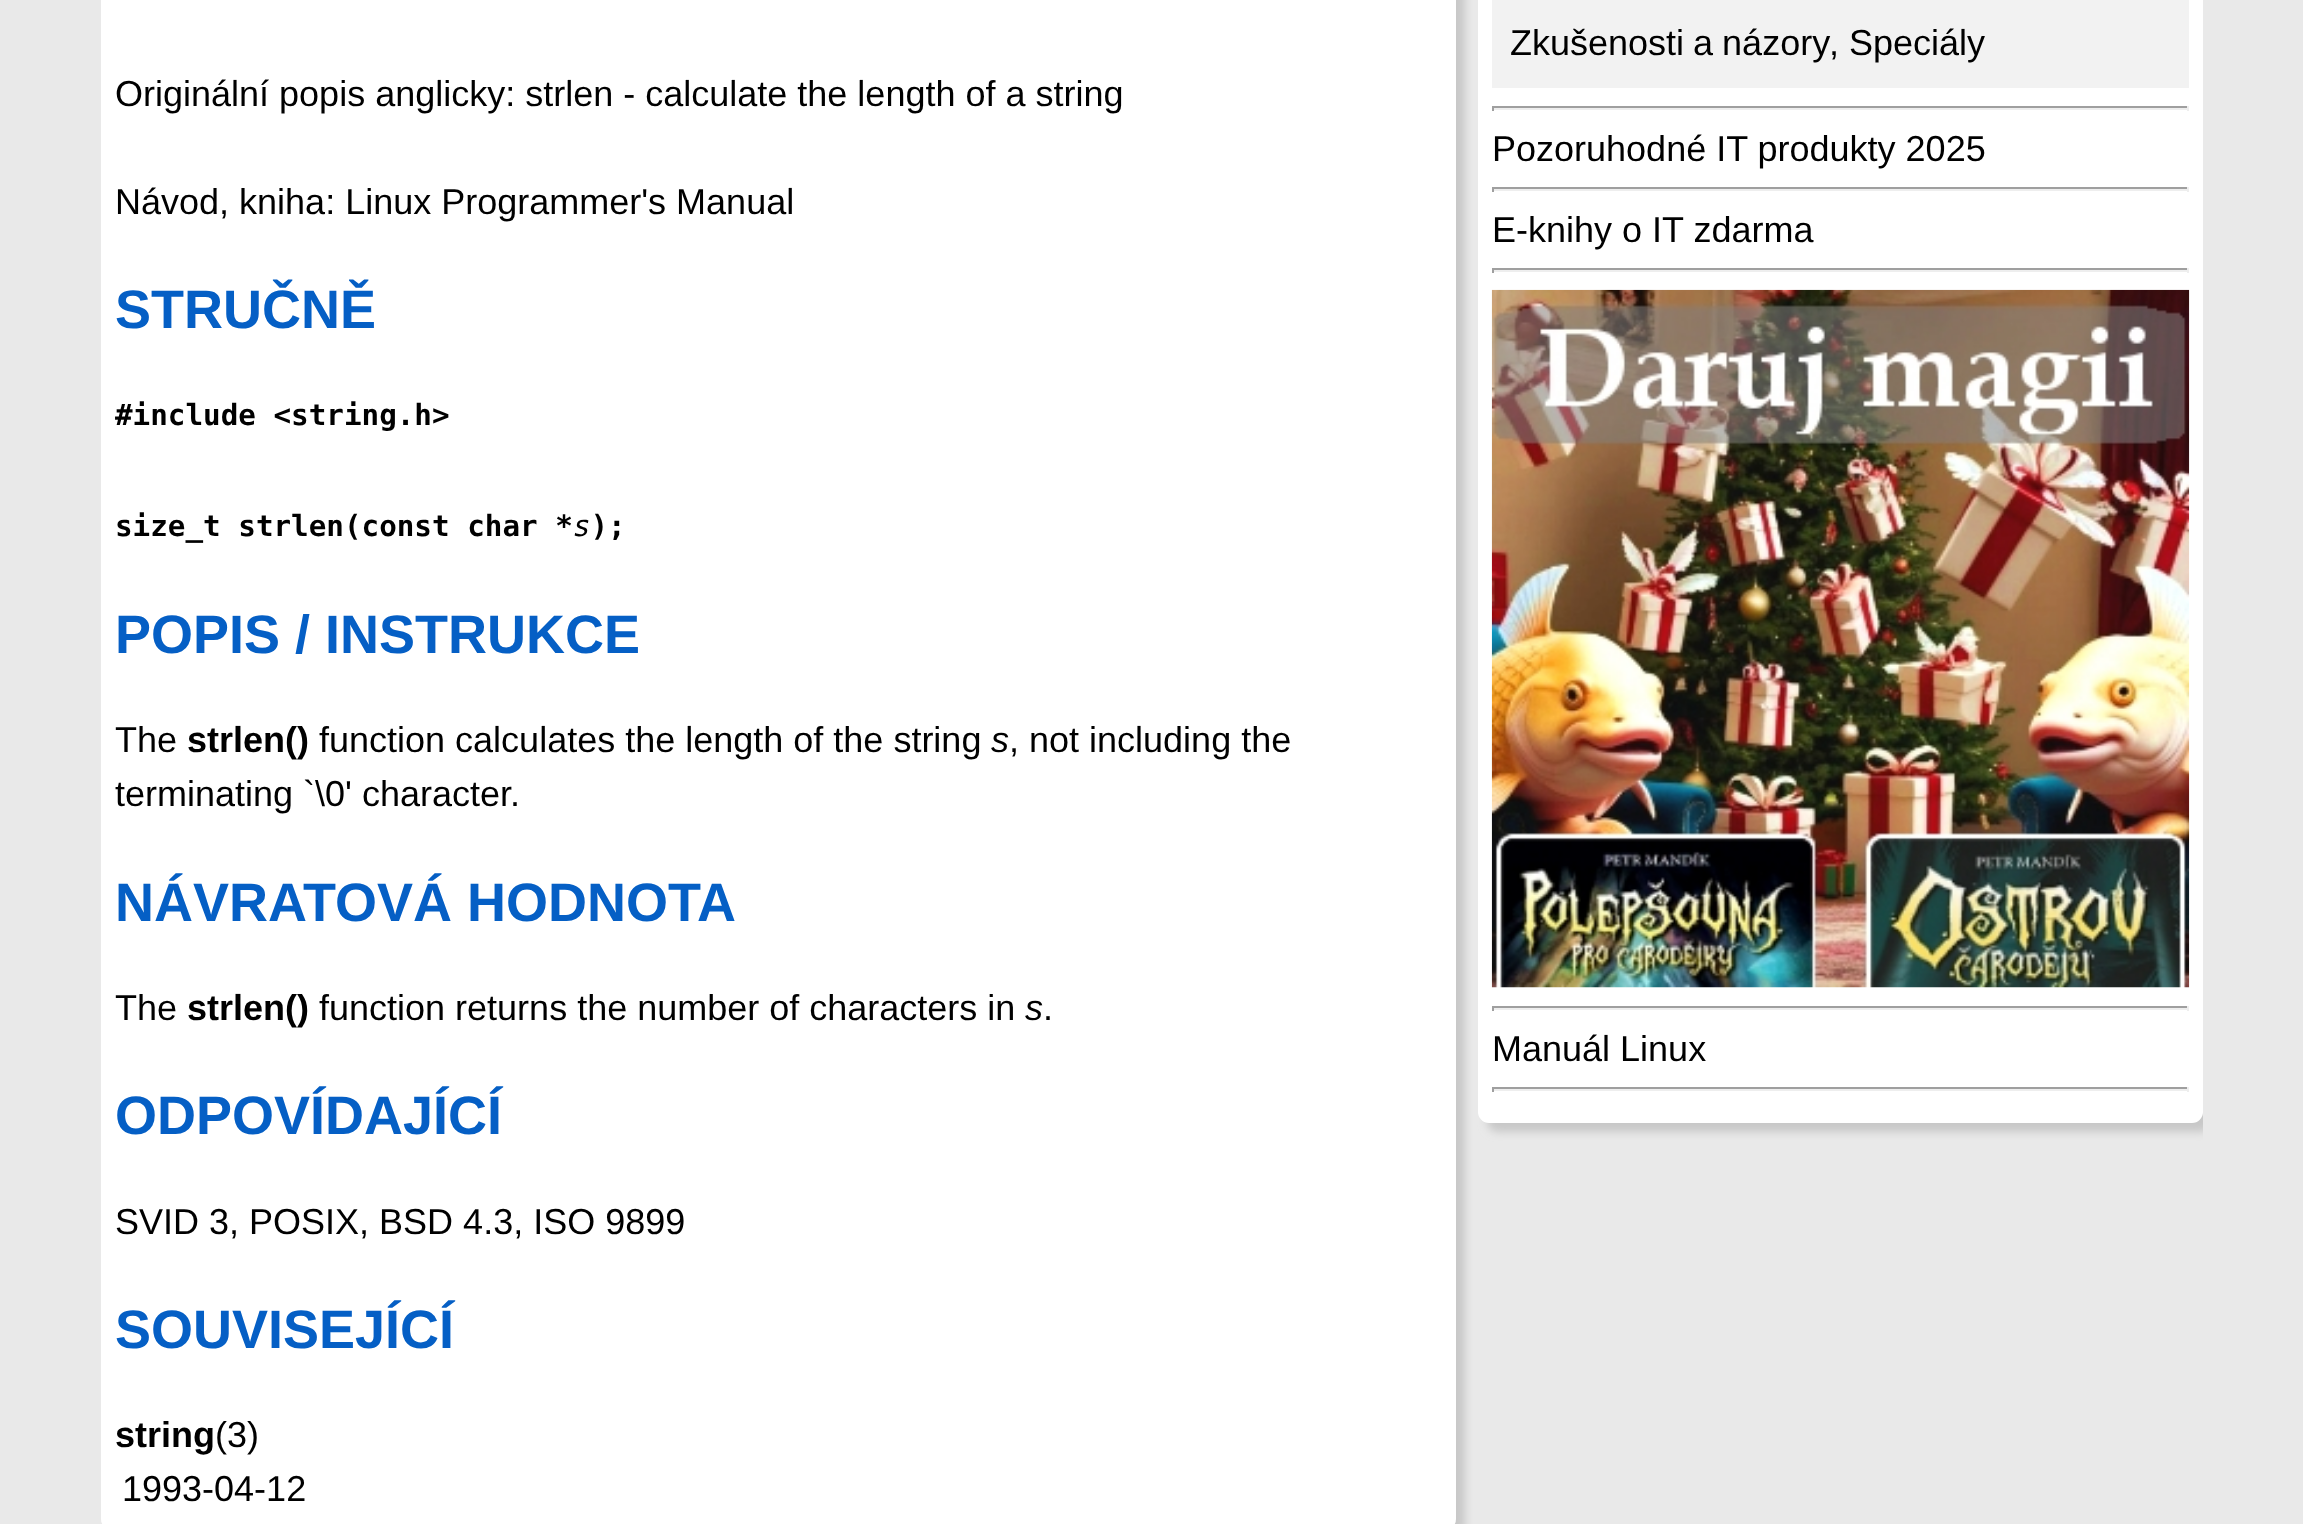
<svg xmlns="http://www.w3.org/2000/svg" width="2303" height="1524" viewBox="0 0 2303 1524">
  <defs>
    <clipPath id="clip1"><rect x="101" y="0" width="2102" height="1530"/></clipPath>
    <filter id="blur1" x="-50%" y="-200%" width="200%" height="500%"><feGaussianBlur stdDeviation="4.5"/></filter>
  </defs>
  <rect width="100%" height="100%" fill="#e9e9e9"/>
  <g clip-path="url(#clip1)">
    <rect x="1487" y="-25" width="725" height="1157" rx="11" fill="#c8c8c8" filter="url(#blur1)"/>
  </g>
  <rect x="1478" y="-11" width="725" height="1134" rx="11" fill="#ffffff"/>
  <rect x="110" y="-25" width="1355" height="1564" rx="11" fill="#c8c8c8" filter="url(#blur1)"/>
  <rect x="101" y="-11" width="1355" height="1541" rx="11" fill="#ffffff"/>
  <text x="115" y="106" font-family="Liberation Sans" font-size="36" fill="#000000">Originální popis anglicky: strlen - calculate the length of a string</text>
  <text x="115" y="214" font-family="Liberation Sans" font-size="36" fill="#000000">Návod, kniha: Linux Programmer's Manual</text>
  <text x="115" y="328" font-family="Liberation Sans" font-size="54" font-weight="bold" fill="#055fc5">STRUČNĚ</text>
  <text x="115" y="425" font-family="DejaVu Sans Mono" font-size="29.25" font-weight="bold" fill="#000000">#include &lt;string.h&gt;</text>
  <text x="115" y="536" font-family="DejaVu Sans Mono" font-size="29.25" font-weight="bold" fill="#000000">size_t strlen(const char * );</text>
  <text x="573" y="536" font-family="DejaVu Sans Mono" font-size="29.25" font-style="italic" fill="#000000">s</text>
  <text x="115" y="653" font-family="Liberation Sans" font-size="54" font-weight="bold" fill="#055fc5">POPIS / INSTRUKCE</text>
  <text x="115" y="752" font-family="Liberation Sans" font-size="36" fill="#000000">The</text>
  <text x="187" y="752" font-family="Liberation Sans" font-size="36" font-weight="bold" fill="#000000">strlen()</text>
  <text x="319" y="752" font-family="Liberation Sans" font-size="36" fill="#000000">function calculates the length of the string</text>
  <text x="991" y="752" font-family="Liberation Sans" font-size="36" font-style="italic" fill="#000000">s</text>
  <text x="1009" y="752" font-family="Liberation Sans" font-size="36" fill="#000000">, not including the</text>
  <text x="115" y="806" font-family="Liberation Sans" font-size="36" fill="#000000">terminating `\0' character.</text>
  <text x="115" y="921" font-family="Liberation Sans" font-size="54" font-weight="bold" fill="#055fc5">NÁVRATOVÁ HODNOTA</text>
  <text x="115" y="1020" font-family="Liberation Sans" font-size="36" fill="#000000">The</text>
  <text x="187" y="1020" font-family="Liberation Sans" font-size="36" font-weight="bold" fill="#000000">strlen()</text>
  <text x="319" y="1020" font-family="Liberation Sans" font-size="36" fill="#000000">function returns the number of characters in</text>
  <text x="1025" y="1020" font-family="Liberation Sans" font-size="36" font-style="italic" fill="#000000">s</text>
  <text x="1043" y="1020" font-family="Liberation Sans" font-size="36" fill="#000000">.</text>
  <text x="115" y="1134" font-family="Liberation Sans" font-size="54" font-weight="bold" fill="#055fc5">ODPOVÍDAJÍCÍ</text>
  <text x="115" y="1234" font-family="Liberation Sans" font-size="36" fill="#000000">SVID 3, POSIX, BSD 4.3, ISO 9899</text>
  <text x="115" y="1348" font-family="Liberation Sans" font-size="54" font-weight="bold" fill="#055fc5">SOUVISEJÍCÍ</text>
  <text x="115" y="1447" font-family="Liberation Sans" font-size="36" font-weight="bold" fill="#000000">string</text>
  <text x="215" y="1447" font-family="Liberation Sans" font-size="36" fill="#000000">(3)</text>
  <text x="122" y="1501" font-family="Liberation Sans" font-size="36" fill="#000000">1993-04-12</text>
  <rect x="1492" y="0" width="697" height="88" fill="#f2f2f2"/>
  <text x="1510" y="55" word-spacing="-1" font-family="Liberation Sans" font-size="36" fill="#000000">Zkušenosti a názory</text>
  <text x="1829" y="55" font-family="Liberation Sans" font-size="36" fill="#000000">, Speciály</text>
  <rect x="1492" y="106" width="697" height="2" fill="#9f9f9f"/>
  <rect x="2187" y="106" width="2" height="5" fill="#eeeeee"/>
  <rect x="1492" y="108" width="697" height="2" fill="#eeeeee"/>
  <rect x="1492" y="106" width="2" height="5" fill="#9f9f9f"/>
  <text x="1492" y="161" font-family="Liberation Sans" font-size="36" fill="#000000">Pozoruhodné IT produkty 2025</text>
  <rect x="1492" y="187" width="697" height="2" fill="#9f9f9f"/>
  <rect x="2187" y="187" width="2" height="5" fill="#eeeeee"/>
  <rect x="1492" y="189" width="697" height="2" fill="#eeeeee"/>
  <rect x="1492" y="187" width="2" height="5" fill="#9f9f9f"/>
  <text x="1492" y="242" font-family="Liberation Sans" font-size="36" fill="#000000">E-knihy o IT zdarma</text>
  <rect x="1492" y="268" width="697" height="2" fill="#9f9f9f"/>
  <rect x="2187" y="268" width="2" height="5" fill="#eeeeee"/>
  <rect x="1492" y="270" width="697" height="2" fill="#eeeeee"/>
  <rect x="1492" y="268" width="2" height="5" fill="#9f9f9f"/>
  <image x="1491" y="289" width="699" height="699" href="img1.png"/>
  <rect x="1492" y="1006" width="697" height="2" fill="#9f9f9f"/>
  <rect x="2187" y="1006" width="2" height="5" fill="#eeeeee"/>
  <rect x="1492" y="1008" width="697" height="2" fill="#eeeeee"/>
  <rect x="1492" y="1006" width="2" height="5" fill="#9f9f9f"/>
  <text x="1492" y="1061" font-family="Liberation Sans" font-size="36" fill="#000000">Manuál Linux</text>
  <rect x="1492" y="1087" width="697" height="2" fill="#9f9f9f"/>
  <rect x="2187" y="1087" width="2" height="5" fill="#eeeeee"/>
  <rect x="1492" y="1089" width="697" height="2" fill="#eeeeee"/>
  <rect x="1492" y="1087" width="2" height="5" fill="#9f9f9f"/>
</svg>
